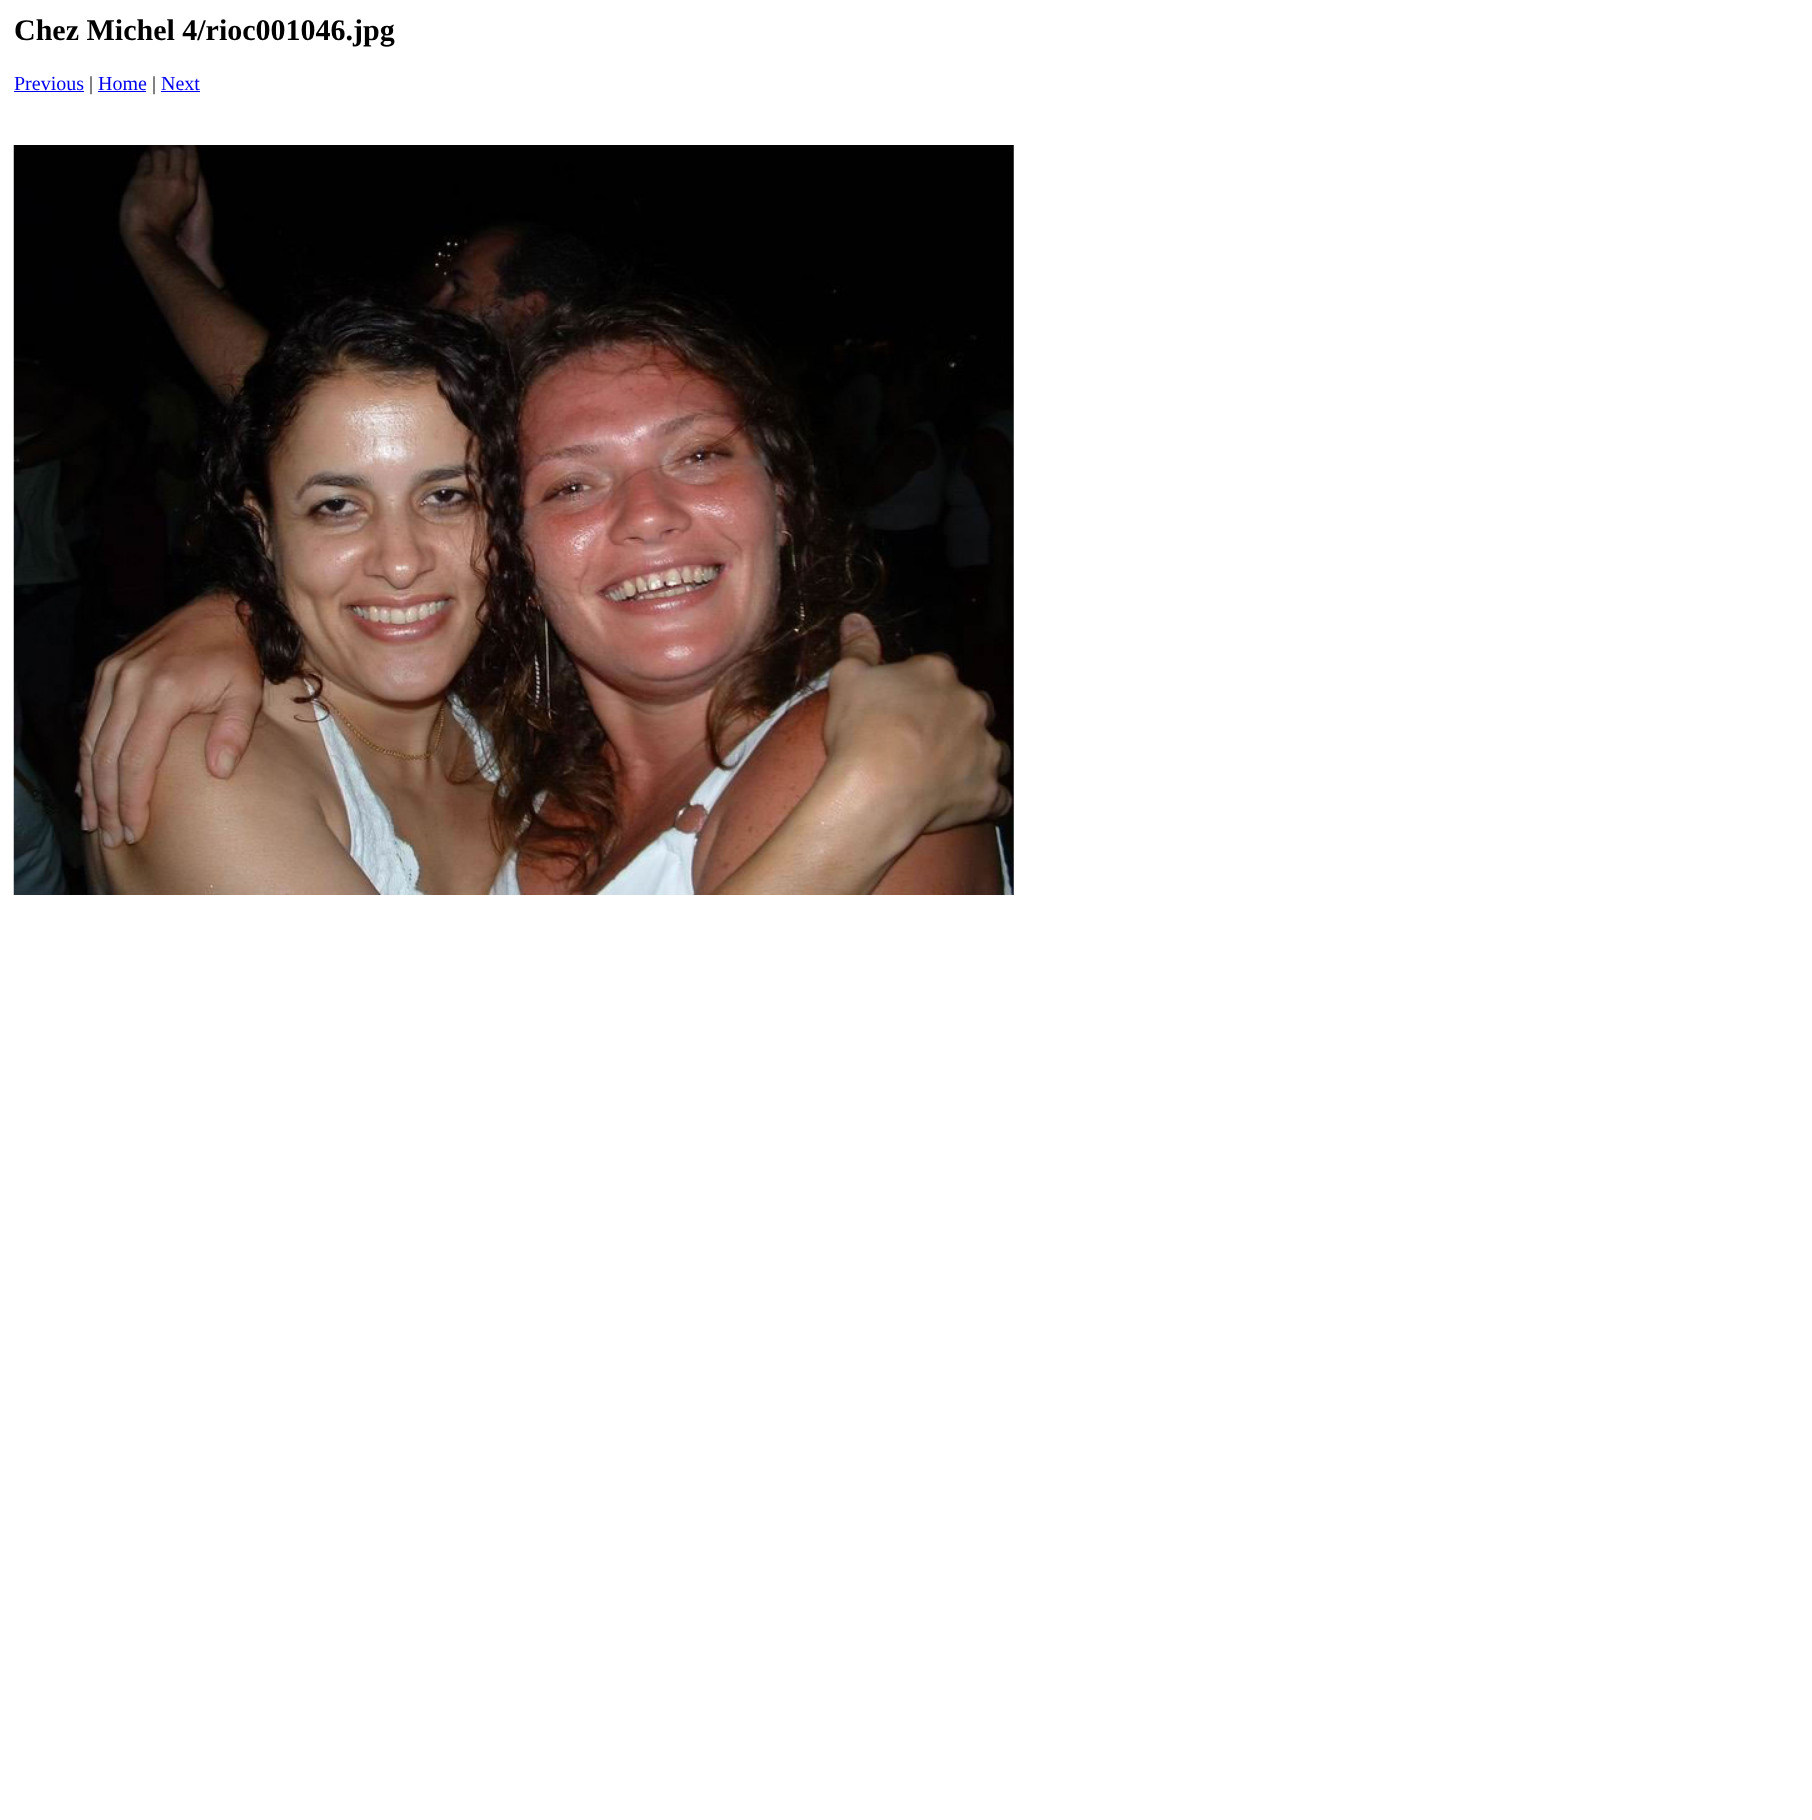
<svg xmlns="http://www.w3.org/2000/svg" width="1812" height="1820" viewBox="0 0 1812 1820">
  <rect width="100%" height="100%" fill="#ffffff"/>
  <text x="14" y="40" font-family="Liberation Serif" font-size="30" font-weight="bold" fill="#000000">Chez Michel 4/rioc001046.jpg</text>
  <text x="14" y="90" font-family="Liberation Serif" font-size="20" fill="#0000ee">Previous</text>
  <rect x="14" y="91" width="70" height="1" fill="#0000ee"/>
  <text x="89" y="90" font-family="Liberation Serif" font-size="20" fill="#000000">|</text>
  <text x="98" y="90" font-family="Liberation Serif" font-size="20" fill="#0000ee">Home</text>
  <rect x="98" y="91" width="48" height="1" fill="#0000ee"/>
  <text x="152" y="90" font-family="Liberation Serif" font-size="20" fill="#000000">|</text>
  <text x="161" y="90" font-family="Liberation Serif" font-size="20" fill="#0000ee">Next</text>
  <rect x="161" y="91" width="39" height="1" fill="#0000ee"/>
  <image x="13" y="145" width="1001" height="750" href="img1.png"/>
</svg>
